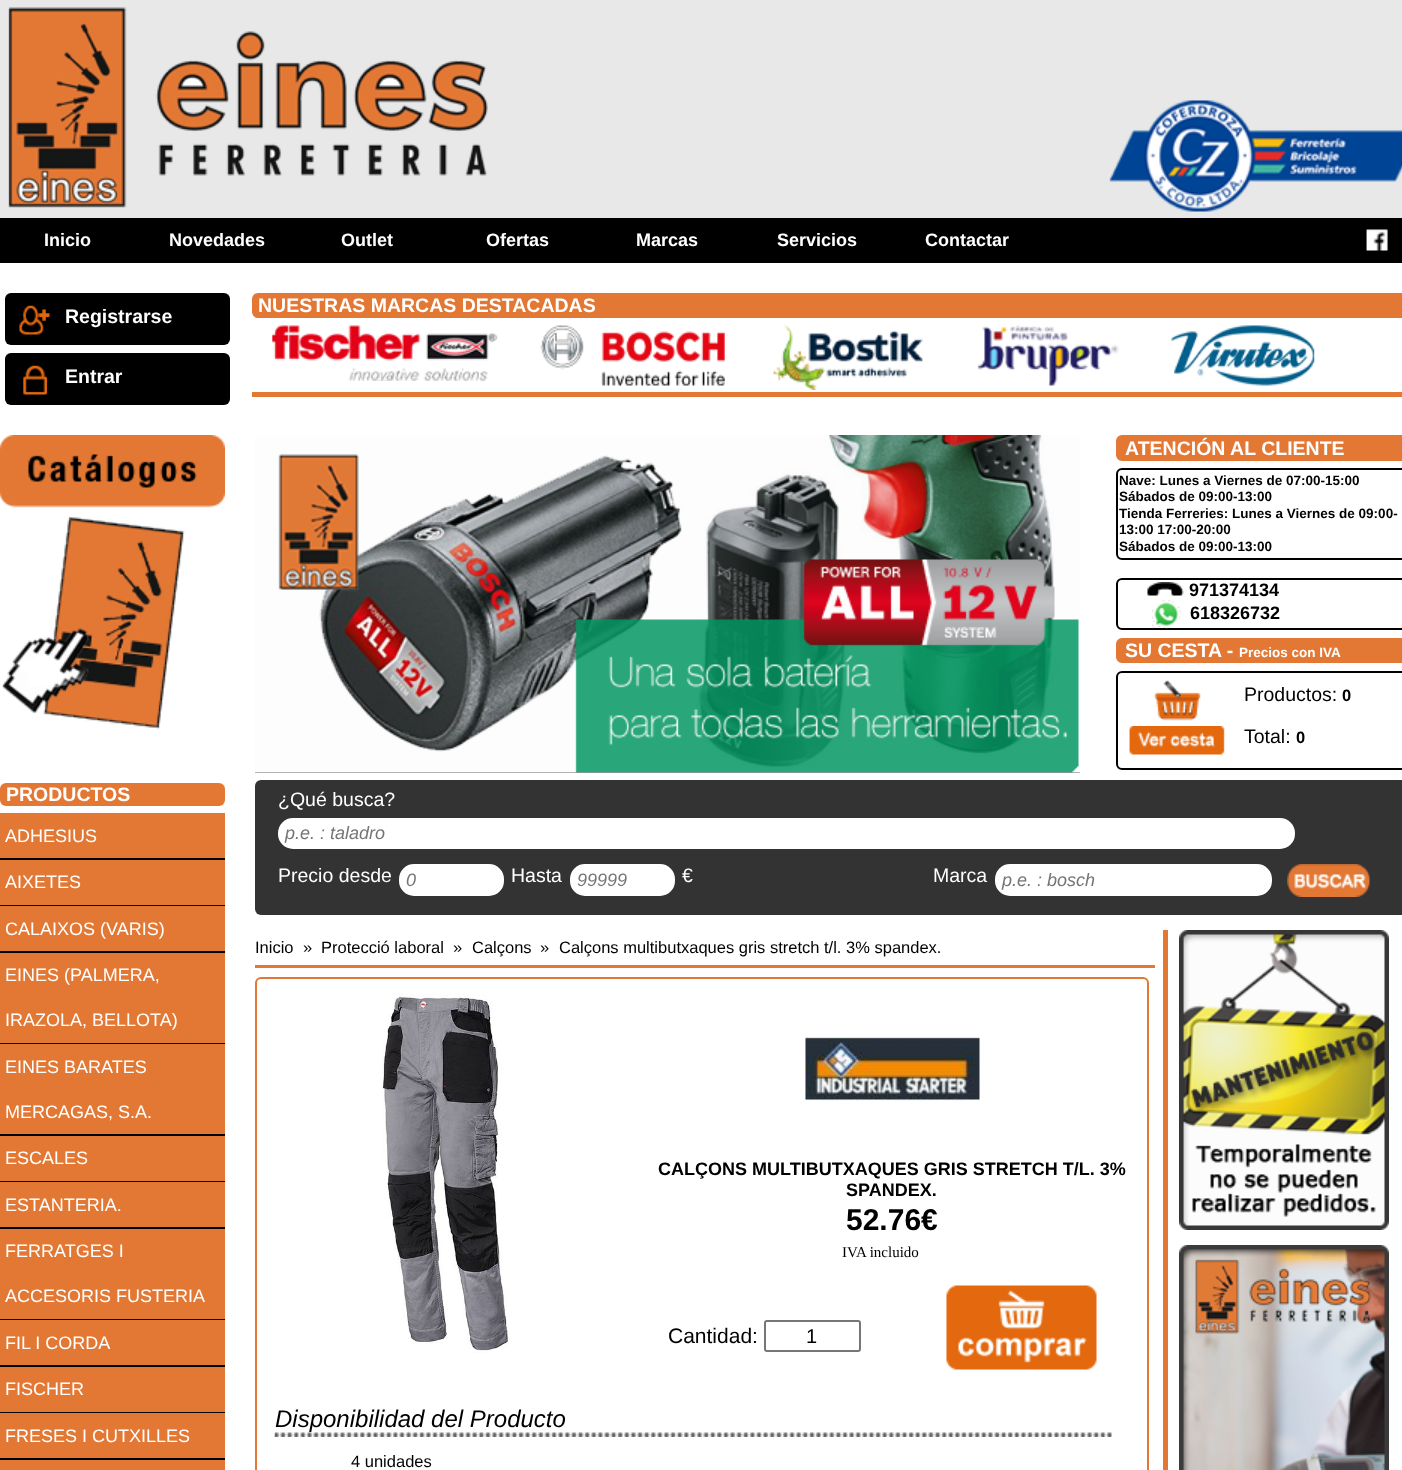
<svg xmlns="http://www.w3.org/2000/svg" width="1402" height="1470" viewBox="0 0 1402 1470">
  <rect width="100%" height="100%" fill="#ffffff"/>
  <rect x="0" y="0" width="1402" height="218" fill="#e8e8e8"/>
  <image x="8" y="7" width="1394" height="205" href="img1.png"/>
  <rect x="0" y="218" width="1402" height="45" fill="#000000"/>
  <text x="44" y="246" font-family="Liberation Sans" font-size="18" font-weight="bold" fill="#ffffff">Inicio</text>
  <text x="169" y="246" font-family="Liberation Sans" font-size="18" font-weight="bold" fill="#ffffff">Novedades</text>
  <text x="341" y="246" font-family="Liberation Sans" font-size="18" font-weight="bold" fill="#ffffff">Outlet</text>
  <text x="486" y="246" font-family="Liberation Sans" font-size="18" font-weight="bold" fill="#ffffff">Ofertas</text>
  <text x="636" y="246" font-family="Liberation Sans" font-size="18" font-weight="bold" fill="#ffffff">Marcas</text>
  <text x="777" y="246" font-family="Liberation Sans" font-size="18" font-weight="bold" fill="#ffffff">Servicios</text>
  <text x="925" y="246" font-family="Liberation Sans" font-size="18" font-weight="bold" fill="#ffffff">Contactar</text>
  <image x="1366" y="229" width="22" height="22" href="img2.png"/>
  <rect x="253" y="294" width="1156" height="23" rx="5" fill="#e37834" stroke="#e37834" stroke-width="2"/>
  <text x="258" y="312" font-family="Liberation Sans" font-size="19.5" font-weight="bold" fill="#ffffff">NUESTRAS MARCAS DESTACADAS</text>
  <rect x="252" y="392" width="1150" height="5" fill="#e37834"/>
  <image x="272" y="325" width="226" height="56" href="img3.png"/>
  <image x="540" y="325" width="185" height="61" href="img4.png"/>
  <image x="773" y="325" width="150" height="65" href="img5.png"/>
  <image x="977" y="325" width="142" height="61" href="img6.png"/>
  <image x="1171" y="325" width="144" height="61" href="img7.png"/>
  <rect x="5" y="293" width="225" height="52" rx="6" fill="#000000"/>
  <image x="19" y="305" width="31" height="30" href="img8.png"/>
  <text x="65" y="323" font-family="Liberation Sans" font-size="19.5" font-weight="bold" fill="#ffffff">Registrarse</text>
  <rect x="5" y="353" width="225" height="52" rx="6" fill="#000000"/>
  <image x="23" y="365" width="25" height="30" href="img9.png"/>
  <text x="65" y="383" font-family="Liberation Sans" font-size="19.5" font-weight="bold" fill="#ffffff">Entrar</text>
  <image x="0" y="435" width="225" height="295" href="img10.png"/>
  <rect x="0" y="783" width="225" height="23" rx="6" fill="#e37834"/>
  <text x="6" y="801" font-family="Liberation Sans" font-size="19.5" font-weight="bold" fill="#ffffff">PRODUCTOS</text>
  <rect x="0" y="813" width="225" height="45" fill="#e37834"/>
  <rect x="0" y="858" width="225" height="2" fill="#000000"/>
  <text x="5" y="842" font-family="Liberation Sans" font-size="18" fill="#ffffff">ADHESIUS</text>
  <rect x="0" y="860" width="225" height="45" fill="#e37834"/>
  <rect x="0" y="905" width="225" height="1" fill="#000000"/>
  <text x="5" y="888" font-family="Liberation Sans" font-size="18" fill="#ffffff">AIXETES</text>
  <rect x="0" y="906" width="225" height="45" fill="#e37834"/>
  <rect x="0" y="951" width="225" height="2" fill="#000000"/>
  <text x="5" y="935" font-family="Liberation Sans" font-size="18" fill="#ffffff">CALAIXOS (VARIS)</text>
  <rect x="0" y="953" width="225" height="90" fill="#e37834"/>
  <rect x="0" y="1043" width="225" height="1" fill="#000000"/>
  <text x="5" y="981" font-family="Liberation Sans" font-size="18" fill="#ffffff">EINES (PALMERA,</text>
  <text x="5" y="1026" font-family="Liberation Sans" font-size="18" fill="#ffffff">IRAZOLA, BELLOTA)</text>
  <rect x="0" y="1044" width="225" height="90" fill="#e37834"/>
  <rect x="0" y="1134" width="225" height="2" fill="#000000"/>
  <text x="5" y="1073" font-family="Liberation Sans" font-size="18" fill="#ffffff">EINES BARATES</text>
  <text x="5" y="1118" font-family="Liberation Sans" font-size="18" fill="#ffffff">MERCAGAS, S.A.</text>
  <rect x="0" y="1136" width="225" height="45" fill="#e37834"/>
  <rect x="0" y="1181" width="225" height="1" fill="#000000"/>
  <text x="5" y="1164" font-family="Liberation Sans" font-size="18" fill="#ffffff">ESCALES</text>
  <rect x="0" y="1182" width="225" height="45" fill="#e37834"/>
  <rect x="0" y="1227" width="225" height="2" fill="#000000"/>
  <text x="5" y="1211" font-family="Liberation Sans" font-size="18" fill="#ffffff">ESTANTERIA.</text>
  <rect x="0" y="1229" width="225" height="90" fill="#e37834"/>
  <rect x="0" y="1319" width="225" height="1" fill="#000000"/>
  <text x="5" y="1257" font-family="Liberation Sans" font-size="18" fill="#ffffff">FERRATGES I</text>
  <text x="5" y="1302" font-family="Liberation Sans" font-size="18" fill="#ffffff">ACCESORIS FUSTERIA</text>
  <rect x="0" y="1320" width="225" height="45" fill="#e37834"/>
  <rect x="0" y="1365" width="225" height="2" fill="#000000"/>
  <text x="5" y="1349" font-family="Liberation Sans" font-size="18" fill="#ffffff">FIL I CORDA</text>
  <rect x="0" y="1367" width="225" height="45" fill="#e37834"/>
  <rect x="0" y="1412" width="225" height="1" fill="#000000"/>
  <text x="5" y="1395" font-family="Liberation Sans" font-size="18" fill="#ffffff">FISCHER</text>
  <rect x="0" y="1413" width="225" height="45" fill="#e37834"/>
  <rect x="0" y="1458" width="225" height="2" fill="#000000"/>
  <text x="5" y="1442" font-family="Liberation Sans" font-size="18" fill="#ffffff">FRESES I CUTXILLES</text>
  <rect x="0" y="1460" width="225" height="10" fill="#e37834"/>
  <rect x="255" y="435" width="825" height="338" fill="#999999"/>
  <image x="255" y="435" width="825" height="338" href="img11.png"/>
  <rect x="1117" y="436" width="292" height="24" rx="5" fill="#e37834" stroke="#e37834" stroke-width="2"/>
  <text x="1125" y="455" font-family="Liberation Sans" font-size="19.5" font-weight="bold" fill="#ffffff">ATENCIÓN AL CLIENTE</text>
  <rect x="1117" y="469" width="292" height="90" rx="5" fill="none" stroke="#000000" stroke-width="2"/>
  <text x="1119" y="485" font-family="Liberation Sans" font-size="13.5" font-weight="bold" fill="#000000">Nave: Lunes a Viernes de 07:00-15:00</text>
  <text x="1119" y="501" font-family="Liberation Sans" font-size="13.5" font-weight="bold" fill="#000000">Sábados de 09:00-13:00</text>
  <text x="1119" y="518" font-family="Liberation Sans" font-size="13.5" font-weight="bold" fill="#000000">Tienda Ferreries: Lunes a Viernes de 09:00-</text>
  <text x="1119" y="534" font-family="Liberation Sans" font-size="13.5" font-weight="bold" fill="#000000">13:00 17:00-20:00</text>
  <text x="1119" y="551" font-family="Liberation Sans" font-size="13.5" font-weight="bold" fill="#000000">Sábados de 09:00-13:00</text>
  <rect x="1117" y="579" width="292" height="50" rx="5" fill="none" stroke="#000000" stroke-width="2"/>
  <image x="1147" y="582" width="37" height="14" href="img12.png"/>
  <text x="1189" y="596" font-family="Liberation Sans" font-size="18" font-weight="bold" fill="#000000">971374134</text>
  <image x="1152" y="600" width="29" height="29" href="img13.png"/>
  <text x="1190" y="619" font-family="Liberation Sans" font-size="18" font-weight="bold" fill="#000000">618326732</text>
  <rect x="1117" y="639" width="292" height="23" rx="5" fill="#e37834" stroke="#e37834" stroke-width="2"/>
  <text x="1125" y="657" font-family="Liberation Sans" font-size="19.5" font-weight="bold" fill="#ffffff">SU CESTA -</text>
  <text x="1239" y="657" font-family="Liberation Sans" font-size="13.5" font-weight="bold" fill="#ffffff">Precios con IVA</text>
  <rect x="1117" y="672" width="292" height="97" rx="5" fill="none" stroke="#000000" stroke-width="2"/>
  <image x="1154" y="680" width="47" height="41" href="img14.png"/>
  <image x="1129" y="726" width="96" height="29" href="img15.png"/>
  <text x="1244" y="701" font-family="Liberation Sans" font-size="19.5" fill="#000000">Productos:</text>
  <text x="1342" y="701" font-family="Liberation Sans" font-size="16.5" font-weight="bold" fill="#000000">0</text>
  <text x="1244" y="743" font-family="Liberation Sans" font-size="19.5" fill="#000000">Total:</text>
  <text x="1296" y="743" font-family="Liberation Sans" font-size="16.5" font-weight="bold" fill="#000000">0</text>
  <rect x="255" y="780" width="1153" height="135" rx="6" fill="#333333"/>
  <text x="278" y="806" font-family="Liberation Sans" font-size="19.5" fill="#ffffff">¿Qué busca?</text>
  <rect x="278" y="818" width="1017" height="31" rx="15" fill="#ffffff"/>
  <text x="285" y="839" font-family="Liberation Sans" font-size="18" font-style="italic" fill="#757575">p.e. : taladro</text>
  <text x="278" y="882" font-family="Liberation Sans" font-size="19.5" fill="#ffffff">Precio desde</text>
  <rect x="399" y="864" width="105" height="32" rx="15" fill="#ffffff"/>
  <text x="406" y="886" font-family="Liberation Sans" font-size="18" font-style="italic" fill="#757575">0</text>
  <text x="511" y="882" font-family="Liberation Sans" font-size="19.5" fill="#ffffff">Hasta</text>
  <rect x="570" y="864" width="105" height="32" rx="15" fill="#ffffff"/>
  <text x="577" y="886" font-family="Liberation Sans" font-size="18" font-style="italic" fill="#757575">99999</text>
  <text x="682" y="882" font-family="Liberation Sans" font-size="19.5" fill="#ffffff">€</text>
  <text x="933" y="882" font-family="Liberation Sans" font-size="19.5" fill="#ffffff">Marca</text>
  <rect x="995" y="864" width="277" height="32" rx="15" fill="#ffffff"/>
  <text x="1002" y="886" font-family="Liberation Sans" font-size="18" font-style="italic" fill="#757575">p.e. : bosch</text>
  <image x="1287" y="864" width="83" height="33" href="img16.png"/>
  <text x="255" y="953" font-family="Liberation Sans" font-size="16.5" fill="#000000">Inicio</text>
  <text x="303" y="953" font-family="Liberation Sans" font-size="16.5" fill="#000000">»</text>
  <text x="321" y="953" font-family="Liberation Sans" font-size="16.5" fill="#000000">Protecció laboral</text>
  <text x="453" y="953" font-family="Liberation Sans" font-size="16.5" fill="#000000">»</text>
  <text x="472" y="953" font-family="Liberation Sans" font-size="16.5" fill="#000000">Calçons</text>
  <text x="540" y="953" font-family="Liberation Sans" font-size="16.5" fill="#000000">»</text>
  <text x="559" y="953" font-family="Liberation Sans" font-size="16.5" fill="#000000">Calçons multibutxaques gris stretch t/l. 3% spandex.</text>
  <rect x="255" y="965" width="900" height="3" fill="#e37834"/>
  <rect x="256" y="978" width="892" height="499" rx="5" fill="none" stroke="#e37834" stroke-width="2"/>
  <image x="382" y="994" width="127" height="359" href="img17.png"/>
  <image x="805" y="1037" width="175" height="64" href="img18.png"/>
  <text x="658" y="1175" font-family="Liberation Sans" font-size="18" font-weight="bold" fill="#000000">CALÇONS MULTIBUTXAQUES GRIS STRETCH T/L. 3%</text>
  <text x="846" y="1196" font-family="Liberation Sans" font-size="18" font-weight="bold" fill="#000000">SPANDEX.</text>
  <text x="846" y="1230" font-family="Liberation Sans" font-size="30" font-weight="bold" fill="#000000">52.76€</text>
  <text x="842" y="1257" font-family="Liberation Serif" font-size="15" fill="#000000">IVA incluido</text>
  <text x="668" y="1343" font-family="Liberation Sans" font-size="21" fill="#000000">Cantidad:</text>
  <rect x="765" y="1321" width="95" height="30" rx="2" fill="none" stroke="#767676" stroke-width="2"/>
  <text x="806" y="1343" font-family="Liberation Sans" font-size="20" fill="#000000">1</text>
  <image x="946" y="1285" width="151" height="85" href="img19.png"/>
  <text x="275" y="1427" font-family="Liberation Sans" font-size="24" font-style="italic" fill="#000000">Disponibilidad del Producto</text>
  <image x="274" y="1432" width="838" height="5" href="img20.png"/>
  <text x="351" y="1467" font-family="Liberation Sans" font-size="16.5" fill="#000000">4 unidades</text>
  <rect x="1163" y="930" width="5" height="540" fill="#e37834"/>
  <image x="1179" y="930" width="210" height="300" href="img21.png"/>
  <image x="1179" y="1245" width="210" height="225" href="img22.png"/>
</svg>
